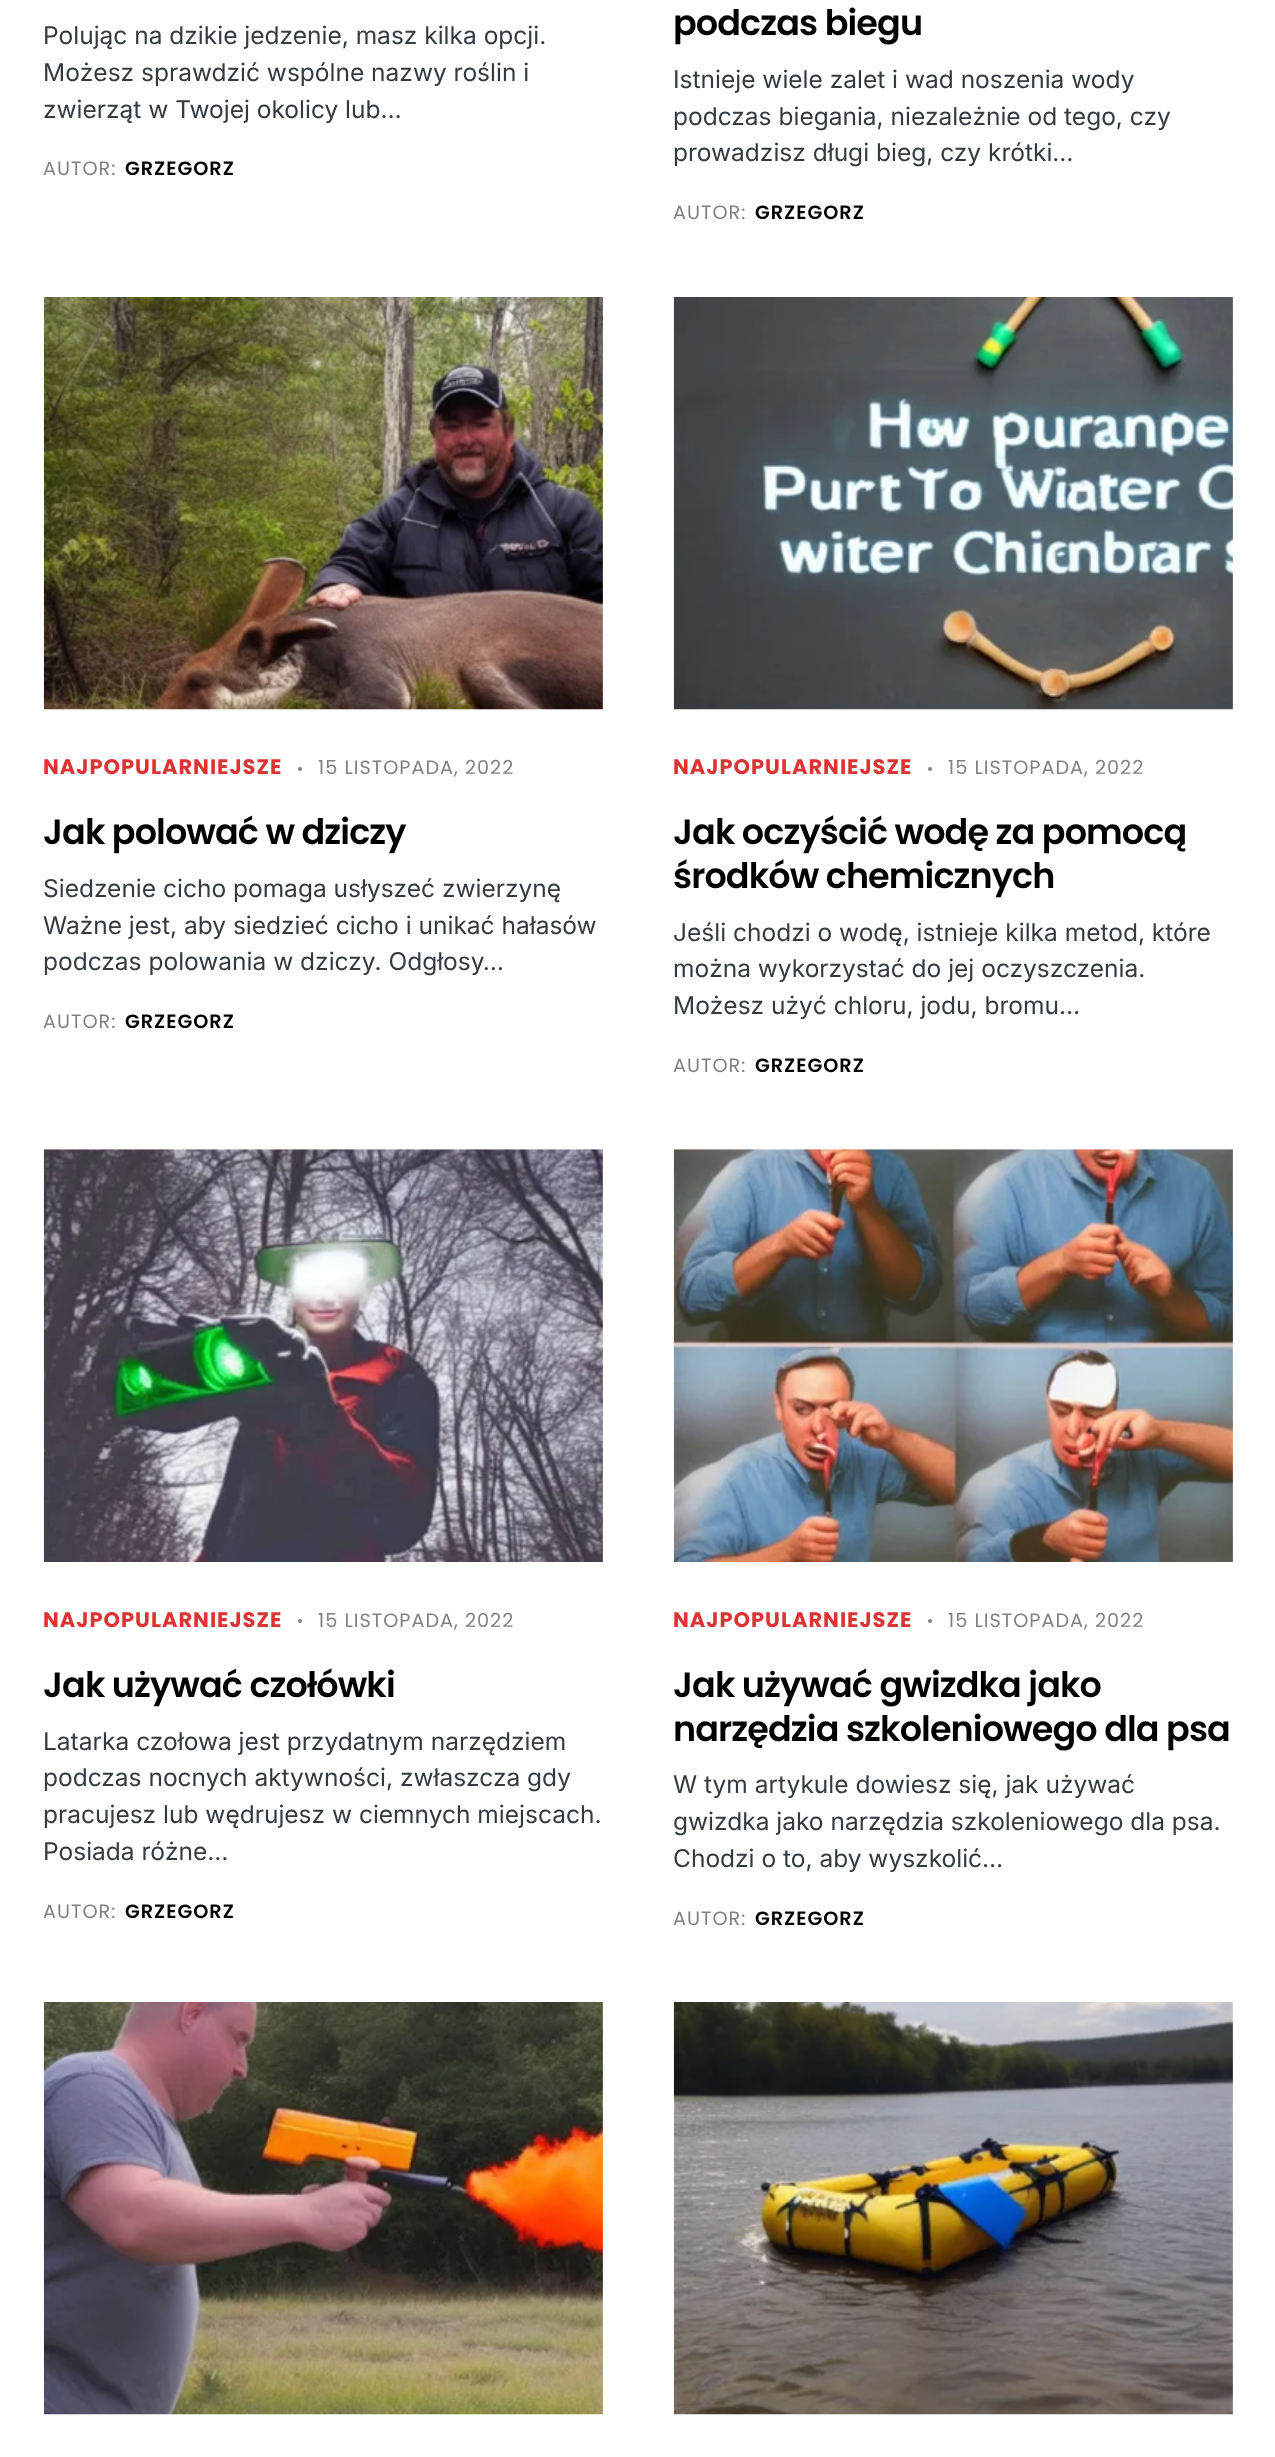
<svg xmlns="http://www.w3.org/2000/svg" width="1275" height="2457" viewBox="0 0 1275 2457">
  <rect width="100%" height="100%" fill="#ffffff"/>
  <text x="43" y="44" font-family="Inter" font-size="24.5" fill="#343a40">Polując na dzikie jedzenie, masz kilka opcji.</text>
  <text x="43" y="81" font-family="Inter" font-size="24.5" fill="#343a40">Możesz sprawdzić wspólne nazwy roślin i</text>
  <text x="43" y="118" font-family="Inter" font-size="24.5" fill="#343a40">zwierząt w Twojej okolicy lub…</text>
  <text x="43" y="175" font-family="Poppins" font-size="19.25" letter-spacing="1" fill="#818181">AUTOR:</text>
  <text x="125" y="175" font-family="Poppins" font-size="19.25" font-weight="600" letter-spacing="1" fill="#000000">GRZEGORZ</text>
  <text x="673" y="35" font-family="Poppins" font-size="35" font-weight="600" letter-spacing="-0.9" fill="#000000">podczas biegu</text>
  <text x="673" y="88" font-family="Inter" font-size="24.5" fill="#343a40">Istnieje wiele zalet i wad noszenia wody</text>
  <text x="673" y="125" font-family="Inter" font-size="24.5" fill="#343a40">podczas biegania, niezależnie od tego, czy</text>
  <text x="673" y="161" font-family="Inter" font-size="24.5" fill="#343a40">prowadzisz długi bieg, czy krótki…</text>
  <text x="673" y="219" font-family="Poppins" font-size="19.25" letter-spacing="1" fill="#818181">AUTOR:</text>
  <text x="755" y="219" font-family="Poppins" font-size="19.25" font-weight="600" letter-spacing="1" fill="#000000">GRZEGORZ</text>
  <image x="43" y="297" width="560" height="413" href="img1.png"/>
  <text x="43" y="774" font-family="Poppins" font-size="21" font-weight="bold" letter-spacing="1" fill="#dd3333">NAJPOPULARNIEJSZE</text>
  <circle cx="300" cy="769" r="2" fill="#818181"/>
  <text x="318" y="774" font-family="Poppins" font-size="19.25" letter-spacing="1" fill="#818181">15 LISTOPADA, 2022</text>
  <text x="43" y="844" font-family="Poppins" font-size="35" font-weight="600" letter-spacing="-0.9" fill="#000000">Jak polować w dziczy</text>
  <text x="43" y="897" font-family="Inter" font-size="24.5" fill="#343a40">Siedzenie cicho pomaga usłyszeć zwierzynę</text>
  <text x="43" y="934" font-family="Inter" font-size="24.5" fill="#343a40">Ważne jest, aby siedzieć cicho i unikać hałasów</text>
  <text x="43" y="970" font-family="Inter" font-size="24.5" fill="#343a40">podczas polowania w dziczy. Odgłosy…</text>
  <text x="43" y="1028" font-family="Poppins" font-size="19.25" letter-spacing="1" fill="#818181">AUTOR:</text>
  <text x="125" y="1028" font-family="Poppins" font-size="19.25" font-weight="600" letter-spacing="1" fill="#000000">GRZEGORZ</text>
  <image x="673" y="297" width="560" height="413" href="img2.png"/>
  <text x="673" y="774" font-family="Poppins" font-size="21" font-weight="bold" letter-spacing="1" fill="#dd3333">NAJPOPULARNIEJSZE</text>
  <circle cx="930" cy="769" r="2" fill="#818181"/>
  <text x="948" y="774" font-family="Poppins" font-size="19.25" letter-spacing="1" fill="#818181">15 LISTOPADA, 2022</text>
  <text x="673" y="844" font-family="Poppins" font-size="35" font-weight="600" letter-spacing="-0.9" fill="#000000">Jak oczyścić wodę za pomocą</text>
  <text x="673" y="888" font-family="Poppins" font-size="35" font-weight="600" letter-spacing="-0.9" fill="#000000">środków chemicznych</text>
  <text x="673" y="941" font-family="Inter" font-size="24.5" fill="#343a40">Jeśli chodzi o wodę, istnieje kilka metod, które</text>
  <text x="673" y="977" font-family="Inter" font-size="24.5" fill="#343a40">można wykorzystać do jej oczyszczenia.</text>
  <text x="673" y="1014" font-family="Inter" font-size="24.5" fill="#343a40">Możesz użyć chloru, jodu, bromu…</text>
  <text x="673" y="1072" font-family="Poppins" font-size="19.25" letter-spacing="1" fill="#818181">AUTOR:</text>
  <text x="755" y="1072" font-family="Poppins" font-size="19.25" font-weight="600" letter-spacing="1" fill="#000000">GRZEGORZ</text>
  <image x="43" y="1149" width="560" height="413" href="img3.png"/>
  <text x="43" y="1627" font-family="Poppins" font-size="21" font-weight="bold" letter-spacing="1" fill="#dd3333">NAJPOPULARNIEJSZE</text>
  <circle cx="300" cy="1621" r="2" fill="#818181"/>
  <text x="318" y="1627" font-family="Poppins" font-size="19.25" letter-spacing="1" fill="#818181">15 LISTOPADA, 2022</text>
  <text x="43" y="1697" font-family="Poppins" font-size="35" font-weight="600" letter-spacing="-0.9" fill="#000000">Jak używać czołówki</text>
  <text x="43" y="1750" font-family="Inter" font-size="24.5" fill="#343a40">Latarka czołowa jest przydatnym narzędziem</text>
  <text x="43" y="1786" font-family="Inter" font-size="24.5" fill="#343a40">podczas nocnych aktywności, zwłaszcza gdy</text>
  <text x="43" y="1823" font-family="Inter" font-size="24.5" fill="#343a40">pracujesz lub wędrujesz w ciemnych miejscach.</text>
  <text x="43" y="1860" font-family="Inter" font-size="24.5" fill="#343a40">Posiada różne…</text>
  <text x="43" y="1918" font-family="Poppins" font-size="19.25" letter-spacing="1" fill="#818181">AUTOR:</text>
  <text x="125" y="1918" font-family="Poppins" font-size="19.25" font-weight="600" letter-spacing="1" fill="#000000">GRZEGORZ</text>
  <image x="673" y="1149" width="560" height="413" href="img4.png"/>
  <text x="673" y="1627" font-family="Poppins" font-size="21" font-weight="bold" letter-spacing="1" fill="#dd3333">NAJPOPULARNIEJSZE</text>
  <circle cx="930" cy="1621" r="2" fill="#818181"/>
  <text x="948" y="1627" font-family="Poppins" font-size="19.25" letter-spacing="1" fill="#818181">15 LISTOPADA, 2022</text>
  <text x="673" y="1697" font-family="Poppins" font-size="35" font-weight="600" letter-spacing="-0.9" fill="#000000">Jak używać gwizdka jako</text>
  <text x="673" y="1741" font-family="Poppins" font-size="35" font-weight="600" letter-spacing="-0.9" fill="#000000">narzędzia szkoleniowego dla psa</text>
  <text x="673" y="1793" font-family="Inter" font-size="24.5" fill="#343a40">W tym artykule dowiesz się, jak używać</text>
  <text x="673" y="1830" font-family="Inter" font-size="24.5" fill="#343a40">gwizdka jako narzędzia szkoleniowego dla psa.</text>
  <text x="673" y="1867" font-family="Inter" font-size="24.5" fill="#343a40">Chodzi o to, aby wyszkolić…</text>
  <text x="673" y="1925" font-family="Poppins" font-size="19.25" letter-spacing="1" fill="#818181">AUTOR:</text>
  <text x="755" y="1925" font-family="Poppins" font-size="19.25" font-weight="600" letter-spacing="1" fill="#000000">GRZEGORZ</text>
  <image x="43" y="2002" width="560" height="413" href="img5.png"/>
  <image x="673" y="2002" width="560" height="413" href="img6.png"/>
</svg>
